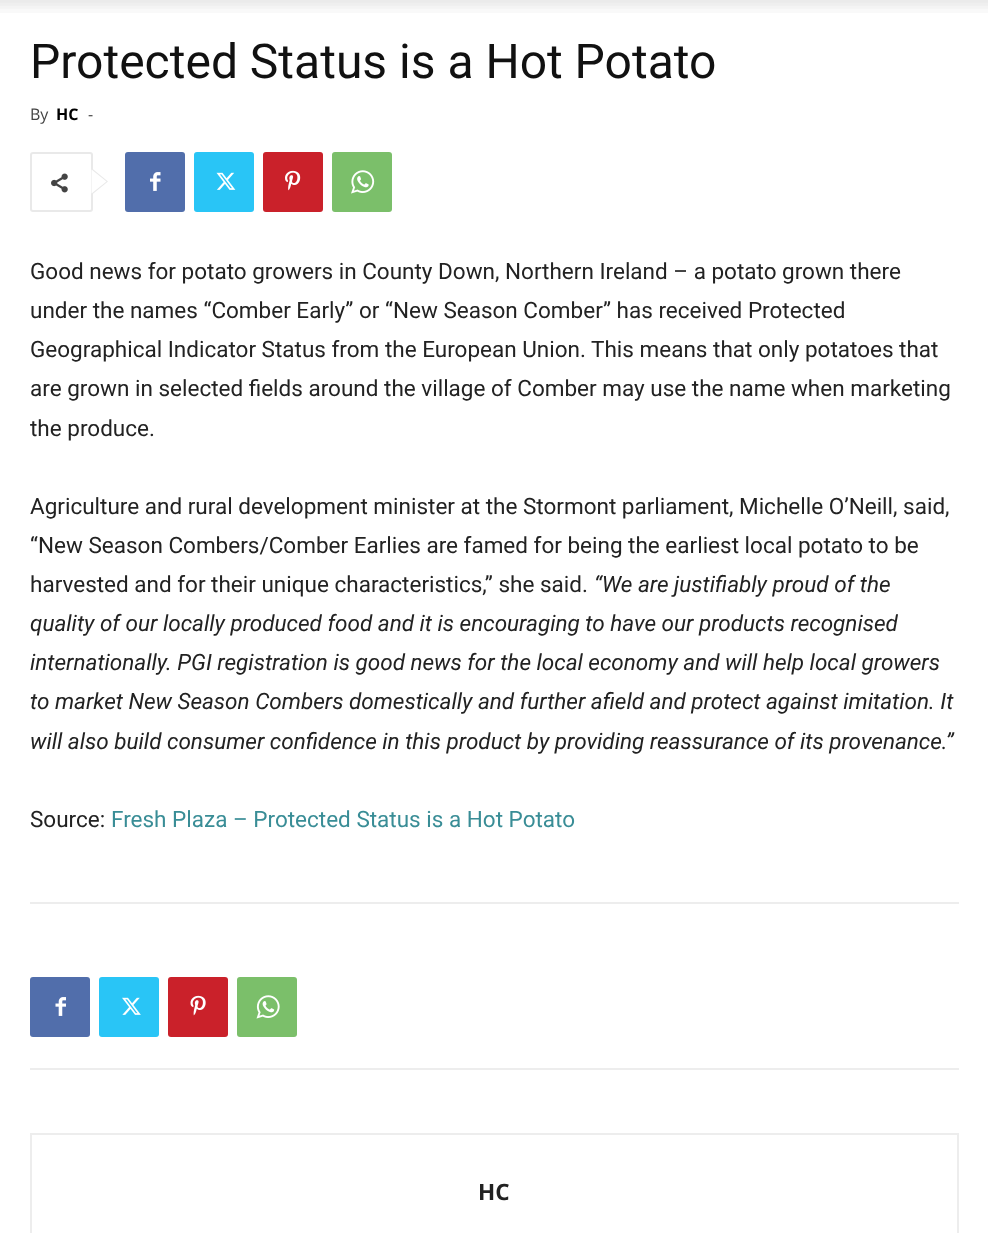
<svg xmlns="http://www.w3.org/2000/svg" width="988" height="1233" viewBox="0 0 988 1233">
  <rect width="100%" height="100%" fill="#ffffff"/>
  <image x="0" y="0" width="988" height="13" href="img1.png"/>
  <text x="30" y="78" font-family="Roboto" font-size="48" fill="#111111">Protected Status is a Hot Potato</text>
  <text x="30" y="120" font-family="Open Sans" font-size="16" fill="#444444">By</text>
  <text x="56" y="120" font-family="Open Sans" font-size="16" font-weight="bold" fill="#000000">HC</text>
  <text x="88" y="120" font-family="Open Sans" font-size="16" fill="#444444">-</text>
  <rect x="31" y="153" width="61" height="58" rx="2" fill="none" stroke="#e9e9e9" stroke-width="2"/>
  <path d="M91.5 195V168L108 181.5Z" fill="#e9e9e9"/>
  <image x="51" y="173" width="17" height="20" href="img2.png"/>
  <path d="M91.5 193.5V169.5L106.5 181.5Z" fill="#ffffff"/>
  <rect x="125" y="152" width="60" height="60" rx="3" fill="#516eab"/>
  <image x="150" y="172" width="11" height="19" href="img3.png"/>
  <rect x="194" y="152" width="60" height="60" rx="3" fill="#29c5f6"/>
  <image x="216" y="172" width="20" height="18" href="img4.png"/>
  <rect x="263" y="152" width="60" height="60" rx="3" fill="#ca212a"/>
  <image x="285" y="170" width="16" height="21" href="img5.png"/>
  <rect x="332" y="152" width="60" height="60" rx="3" fill="#7bbf6a"/>
  <image x="351" y="170" width="24" height="24" href="img6.png"/>
  <text x="30" y="279" font-family="Roboto" font-size="22.5" fill="#222222">Good news for potato growers in County Down, Northern Ireland – a potato grown there</text>
  <text x="30" y="318" font-family="Roboto" font-size="22.5" fill="#222222">under the names “Comber Early” or “New Season Comber” has received Protected</text>
  <text x="30" y="357" font-family="Roboto" font-size="22.5" fill="#222222">Geographical Indicator Status from the European Union. This means that only potatoes that</text>
  <text x="30" y="396" font-family="Roboto" font-size="22.5" fill="#222222">are grown in selected fields around the village of Comber may use the name when marketing</text>
  <text x="30" y="436" font-family="Roboto" font-size="22.5" fill="#222222">the produce.</text>
  <text x="30" y="514" font-family="Roboto" font-size="22.5" fill="#222222">Agriculture and rural development minister at the Stormont parliament, Michelle O’Neill, said,</text>
  <text x="30" y="553" font-family="Roboto" font-size="22.5" fill="#222222">“New Season Combers/Comber Earlies are famed for being the earliest local potato to be</text>
  <text x="30" y="592" font-family="Roboto" font-size="22.5" fill="#222222">harvested and for their unique characteristics,” she said.</text>
  <text x="594" y="592" font-family="Roboto" font-size="22.5" font-style="italic" fill="#222222">“We are justifiably proud of the</text>
  <text x="30" y="631" font-family="Roboto" font-size="22.5" font-style="italic" fill="#222222">quality of our locally produced food and it is encouraging to have our products recognised</text>
  <text x="30" y="670" font-family="Roboto" font-size="22.5" font-style="italic" fill="#222222">internationally. PGI registration is good news for the local economy and will help local growers</text>
  <text x="30" y="709" font-family="Roboto" font-size="22.5" font-style="italic" fill="#222222">to market New Season Combers domestically and further afield and protect against imitation. It</text>
  <text x="30" y="749" font-family="Roboto" font-size="22.5" font-style="italic" fill="#222222">will also build consumer confidence in this product by providing reassurance of its provenance.”</text>
  <text x="30" y="827" font-family="Roboto" font-size="22.5" fill="#222222">Source:</text>
  <text x="111" y="827" font-family="Roboto" font-size="22.5" fill="#398d96">Fresh Plaza – Protected Status is a Hot Potato</text>
  <rect x="30" y="902" width="929" height="2" fill="#ededed"/>
  <rect x="30" y="1068" width="929" height="2" fill="#ededed"/>
  <rect x="30" y="977" width="60" height="60" rx="3" fill="#516eab"/>
  <image x="55" y="997" width="11" height="19" href="img7.png"/>
  <rect x="99" y="977" width="60" height="60" rx="3" fill="#29c5f6"/>
  <image x="122" y="997" width="19" height="18" href="img8.png"/>
  <rect x="168" y="977" width="60" height="60" rx="3" fill="#ca212a"/>
  <image x="190" y="995" width="16" height="21" href="img9.png"/>
  <rect x="237" y="977" width="60" height="60" rx="3" fill="#7bbf6a"/>
  <image x="256" y="995" width="24" height="24" href="img10.png"/>
  <rect x="31" y="1134" width="927" height="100" fill="none" stroke="#ededed" stroke-width="2"/>
  <text x="478" y="1200" font-family="Open Sans" font-size="22.5" font-weight="bold" fill="#222222">HC</text>
</svg>
